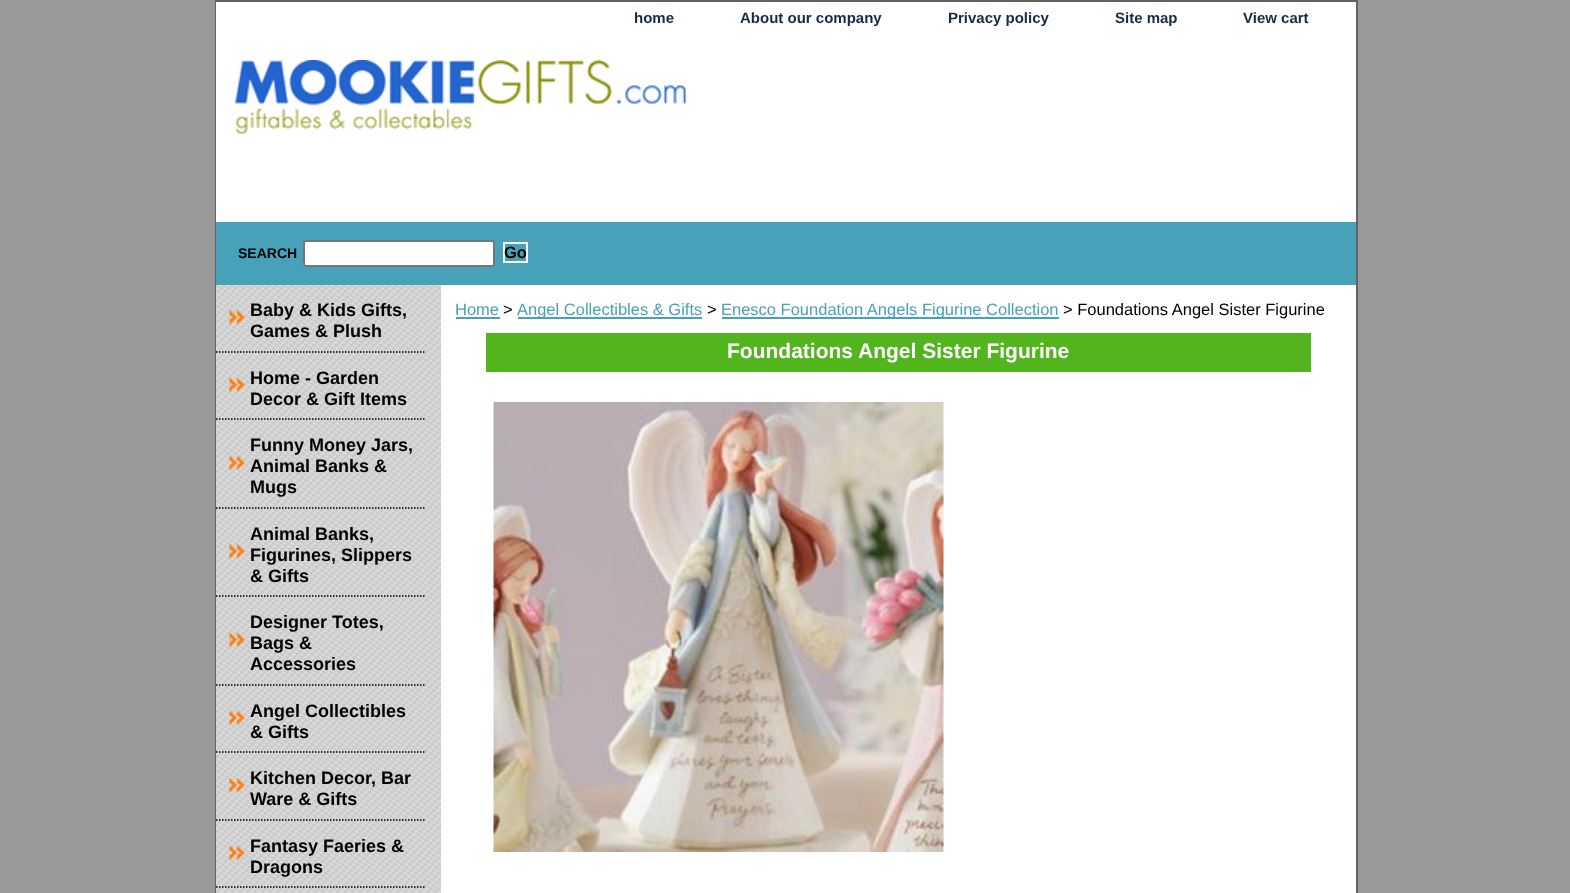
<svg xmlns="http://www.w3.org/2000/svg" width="1570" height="893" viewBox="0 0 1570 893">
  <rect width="100%" height="100%" fill="#999999"/>
  <rect x="216" y="1" width="1141" height="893" fill="none" stroke="#626262" stroke-width="2"/>
  <rect x="216" y="2" width="1140" height="220" fill="#ffffff"/>
  <text x="634" y="23" font-family="Liberation Sans" font-size="15" font-weight="bold" fill="#162b47">home</text>
  <text x="740" y="23" font-family="Liberation Sans" font-size="15" font-weight="bold" fill="#162b47">About our company</text>
  <text x="948" y="23" font-family="Liberation Sans" font-size="15" font-weight="bold" fill="#162b47">Privacy policy</text>
  <text x="1115" y="23" font-family="Liberation Sans" font-size="15" font-weight="bold" fill="#162b47">Site map</text>
  <text x="1243" y="23" font-family="Liberation Sans" font-size="15" font-weight="bold" fill="#162b47">View cart</text>
  <image x="235" y="60" width="451" height="74" href="img1.png"/>
  <rect x="216" y="222" width="1140" height="63" fill="#47a1b8"/>
  <text x="238" y="258" font-family="Liberation Sans" font-size="14" font-weight="bold" fill="#000000">SEARCH</text>
  <rect x="304" y="241" width="190" height="25" rx="2" fill="#ffffff" stroke="#767676" stroke-width="2"/>
  <rect x="504" y="243" width="23" height="19" fill="none" stroke="#ffffff" stroke-width="2"/>
  <text x="504" y="258" font-family="Liberation Sans" font-size="16.5" font-weight="bold" fill="#000000">Go</text>
  <rect x="441" y="285" width="915" height="608" fill="#ffffff"/>
  <image x="216" y="285" width="225" height="608" href="img2.png"/>
  <image x="229" y="310" width="16" height="15" href="img3.png"/>
  <path d="M216 352H426" fill="none" stroke="#000000" stroke-width="1.5" stroke-dasharray="1.5 1.5"/>
  <text x="250" y="316" font-family="Liberation Sans" font-size="18" font-weight="bold" fill="#000000">Baby &amp; Kids Gifts,</text>
  <text x="250" y="337" font-family="Liberation Sans" font-size="18" font-weight="bold" fill="#000000">Games &amp; Plush</text>
  <image x="229" y="377" width="16" height="15" href="img4.png"/>
  <path d="M216 419H426" fill="none" stroke="#000000" stroke-width="1.5" stroke-dasharray="1.5 1.5"/>
  <text x="250" y="384" font-family="Liberation Sans" font-size="18" font-weight="bold" fill="#000000">Home - Garden</text>
  <text x="250" y="405" font-family="Liberation Sans" font-size="18" font-weight="bold" fill="#000000">Decor &amp; Gift Items</text>
  <image x="229" y="455" width="16" height="15" href="img5.png"/>
  <path d="M216 508H426" fill="none" stroke="#000000" stroke-width="1.5" stroke-dasharray="1.5 1.5"/>
  <text x="250" y="451" font-family="Liberation Sans" font-size="18" font-weight="bold" fill="#000000">Funny Money Jars,</text>
  <text x="250" y="472" font-family="Liberation Sans" font-size="18" font-weight="bold" fill="#000000">Animal Banks &amp;</text>
  <text x="250" y="493" font-family="Liberation Sans" font-size="18" font-weight="bold" fill="#000000">Mugs</text>
  <image x="229" y="544" width="16" height="15" href="img6.png"/>
  <path d="M216 596H426" fill="none" stroke="#000000" stroke-width="1.5" stroke-dasharray="1.5 1.5"/>
  <text x="250" y="540" font-family="Liberation Sans" font-size="18" font-weight="bold" fill="#000000">Animal Banks,</text>
  <text x="250" y="561" font-family="Liberation Sans" font-size="18" font-weight="bold" fill="#000000">Figurines, Slippers</text>
  <text x="250" y="582" font-family="Liberation Sans" font-size="18" font-weight="bold" fill="#000000">&amp; Gifts</text>
  <image x="229" y="632" width="16" height="15" href="img4.png"/>
  <path d="M216 685H426" fill="none" stroke="#000000" stroke-width="1.5" stroke-dasharray="1.5 1.5"/>
  <text x="250" y="628" font-family="Liberation Sans" font-size="18" font-weight="bold" fill="#000000">Designer Totes,</text>
  <text x="250" y="649" font-family="Liberation Sans" font-size="18" font-weight="bold" fill="#000000">Bags &amp;</text>
  <text x="250" y="670" font-family="Liberation Sans" font-size="18" font-weight="bold" fill="#000000">Accessories</text>
  <image x="229" y="710" width="16" height="15" href="img5.png"/>
  <path d="M216 752H426" fill="none" stroke="#000000" stroke-width="1.5" stroke-dasharray="1.5 1.5"/>
  <text x="250" y="717" font-family="Liberation Sans" font-size="18" font-weight="bold" fill="#000000">Angel Collectibles</text>
  <text x="250" y="738" font-family="Liberation Sans" font-size="18" font-weight="bold" fill="#000000">&amp; Gifts</text>
  <image x="229" y="778" width="16" height="15" href="img7.png"/>
  <path d="M216 820H426" fill="none" stroke="#000000" stroke-width="1.5" stroke-dasharray="1.5 1.5"/>
  <text x="250" y="784" font-family="Liberation Sans" font-size="18" font-weight="bold" fill="#000000">Kitchen Decor, Bar</text>
  <text x="250" y="805" font-family="Liberation Sans" font-size="18" font-weight="bold" fill="#000000">Ware &amp; Gifts</text>
  <image x="229" y="845" width="16" height="15" href="img5.png"/>
  <path d="M216 887H426" fill="none" stroke="#000000" stroke-width="1.5" stroke-dasharray="1.5 1.5"/>
  <text x="250" y="852" font-family="Liberation Sans" font-size="18" font-weight="bold" fill="#000000">Fantasy Faeries &amp;</text>
  <text x="250" y="873" font-family="Liberation Sans" font-size="18" font-weight="bold" fill="#000000">Dragons</text>
  <text x="455" y="315" font-family="Liberation Sans" font-size="16.5" fill="#47a1b8">Home</text>
  <rect x="456" y="317" width="44" height="2" fill="#47a1b8"/>
  <text x="503" y="315" font-family="Liberation Sans" font-size="16.5" fill="#000000">&gt;</text>
  <rect x="518" y="317" width="184" height="2" fill="#47a1b8"/>
  <text x="517" y="315" font-family="Liberation Sans" font-size="16.5" fill="#47a1b8">Angel Collectibles &amp; Gifts</text>
  <text x="707" y="315" font-family="Liberation Sans" font-size="16.5" fill="#000000">&gt;</text>
  <rect x="722" y="317" width="337" height="2" fill="#47a1b8"/>
  <text x="721" y="315" font-family="Liberation Sans" font-size="16.5" fill="#47a1b8">Enesco Foundation Angels Figurine Collection</text>
  <text x="1063" y="315" font-family="Liberation Sans" font-size="16.5" fill="#000000">&gt; Foundations Angel Sister Figurine</text>
  <rect x="486" y="333" width="825" height="39" fill="#52b51e"/>
  <text x="727" y="358" font-family="Liberation Sans" font-size="21" font-weight="bold" fill="#ffffff">Foundations Angel Sister Figurine</text>
  <image x="493" y="402" width="451" height="450" href="img8.png"/>
</svg>
